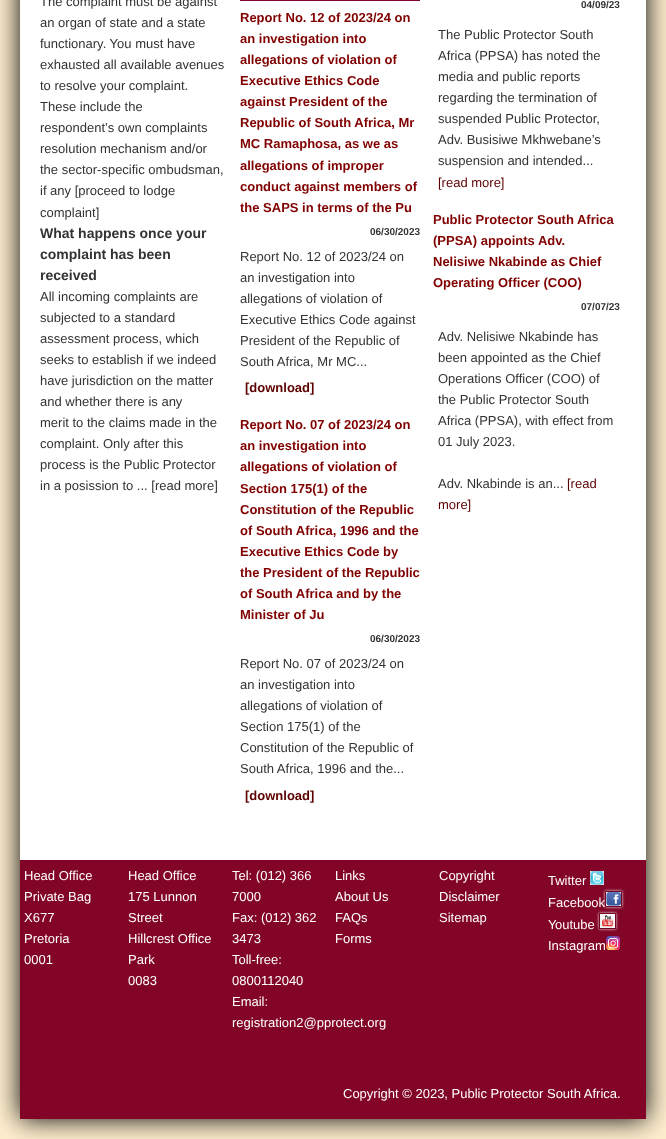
<svg xmlns="http://www.w3.org/2000/svg" width="666" height="1139" viewBox="0 0 666 1139">
  <defs>
    <filter id="blur1" x="-50%" y="-200%" width="200%" height="500%"><feGaussianBlur stdDeviation="13"/></filter>
    <filter id="blur2" x="-50%" y="-200%" width="200%" height="500%"><feGaussianBlur stdDeviation="1.5"/></filter>
  </defs>
  <rect width="100%" height="100%" fill="#feedcd"/>
  <rect x="20" y="-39" width="626" height="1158" fill="#000000" filter="url(#blur1)"/>
  <rect x="20" y="0" width="626" height="860" fill="#ffffff"/>
  <text x="40" y="6" font-family="Liberation Sans" font-size="13" fill="#333333">The complaint must be against</text>
  <text x="40" y="27" font-family="Liberation Sans" font-size="13" fill="#333333">an organ of state and a state</text>
  <text x="40" y="48" font-family="Liberation Sans" font-size="13" fill="#333333">functionary. You must have</text>
  <text x="40" y="69" font-family="Liberation Sans" font-size="13" fill="#333333">exhausted all available avenues</text>
  <text x="40" y="90" font-family="Liberation Sans" font-size="13" fill="#333333">to resolve your complaint.</text>
  <text x="40" y="111" font-family="Liberation Sans" font-size="13" fill="#333333">These include the</text>
  <text x="40" y="132" font-family="Liberation Sans" font-size="13" fill="#333333">respondent’s own complaints</text>
  <text x="40" y="153" font-family="Liberation Sans" font-size="13" fill="#333333">resolution</text>
  <text x="100" y="153" font-family="Liberation Sans" font-size="13" fill="#333333">mechanism and/or</text>
  <text x="40" y="174" font-family="Liberation Sans" font-size="13" fill="#333333">the sector-specific ombudsman,</text>
  <text x="40" y="195" font-family="Liberation Sans" font-size="13" fill="#333333">if any [proceed to lodge</text>
  <text x="40" y="217" font-family="Liberation Sans" font-size="13" fill="#333333">complaint]</text>
  <text x="40" y="238" font-family="Liberation Sans" font-size="14" font-weight="bold" fill="#333333">What happens once your</text>
  <text x="40" y="259" font-family="Liberation Sans" font-size="14" font-weight="bold" fill="#333333">complaint has been</text>
  <text x="40" y="280" font-family="Liberation Sans" font-size="14" font-weight="bold" fill="#333333">received</text>
  <text x="40" y="301" font-family="Liberation Sans" font-size="13" fill="#333333">All incoming complaints are</text>
  <text x="40" y="322" font-family="Liberation Sans" font-size="13" fill="#333333">subjected to a standard</text>
  <text x="40" y="343" font-family="Liberation Sans" font-size="13" fill="#333333">assessment process, which</text>
  <text x="40" y="364" font-family="Liberation Sans" font-size="13" fill="#333333">seeks to establish if we indeed</text>
  <text x="40" y="385" font-family="Liberation Sans" font-size="13" fill="#333333">have jurisdiction on the matter</text>
  <text x="40" y="406" font-family="Liberation Sans" font-size="13" fill="#333333">and whether there is any</text>
  <text x="40" y="427" font-family="Liberation Sans" font-size="13" fill="#333333">merit to the claims made in the</text>
  <text x="40" y="448" font-family="Liberation Sans" font-size="13" fill="#333333">complaint.</text>
  <text x="103" y="448" font-family="Liberation Sans" font-size="13" fill="#333333">Only after this</text>
  <text x="40" y="469" font-family="Liberation Sans" font-size="13" fill="#333333">process is the Public Protector</text>
  <text x="40" y="490" font-family="Liberation Sans" font-size="13" fill="#333333">in a posission to ... [read more]</text>
  <rect x="240" y="0" width="180" height="1" fill="#820426"/>
  <text x="240" y="22" font-family="Liberation Sans" font-size="13" font-weight="bold" fill="#800000">Report No. 12 of 2023/24 on</text>
  <text x="240" y="43" font-family="Liberation Sans" font-size="13" font-weight="bold" fill="#800000">an investigation into</text>
  <text x="240" y="64" font-family="Liberation Sans" font-size="13" font-weight="bold" fill="#800000">allegations of violation of</text>
  <text x="240" y="85" font-family="Liberation Sans" font-size="13" font-weight="bold" fill="#800000">Executive Ethics Code</text>
  <text x="240" y="106" font-family="Liberation Sans" font-size="13" font-weight="bold" fill="#800000">against President of the</text>
  <text x="240" y="127" font-family="Liberation Sans" font-size="13" font-weight="bold" fill="#800000">Republic of South Africa, Mr</text>
  <text x="240" y="148" font-family="Liberation Sans" font-size="13" font-weight="bold" fill="#800000">MC Ramaphosa, as we as</text>
  <text x="240" y="170" font-family="Liberation Sans" font-size="13" font-weight="bold" fill="#800000">allegations of improper</text>
  <text x="240" y="191" font-family="Liberation Sans" font-size="13" font-weight="bold" fill="#800000">conduct against members of</text>
  <text x="240" y="212" font-family="Liberation Sans" font-size="13" font-weight="bold" fill="#800000">the SAPS in terms of the Pu</text>
  <text x="370" y="235" font-family="Liberation Sans" font-size="10" font-weight="bold" fill="#333333">06/30/2023</text>
  <text x="240" y="261" font-family="Liberation Sans" font-size="13" fill="#333333">Report No. 12 of 2023/24 on</text>
  <text x="240" y="282" font-family="Liberation Sans" font-size="13" fill="#333333">an investigation into</text>
  <text x="240" y="303" font-family="Liberation Sans" font-size="13" fill="#333333">allegations of violation of</text>
  <text x="240" y="324" font-family="Liberation Sans" font-size="13" fill="#333333">Executive Ethics Code against</text>
  <text x="240" y="345" font-family="Liberation Sans" font-size="13" fill="#333333">President of the Republic of</text>
  <text x="240" y="366" font-family="Liberation Sans" font-size="13" fill="#333333">South Africa, Mr MC...</text>
  <text x="245" y="392" font-family="Liberation Sans" font-size="13" font-weight="bold" fill="#5d0000">[download]</text>
  <text x="240" y="429" font-family="Liberation Sans" font-size="13" font-weight="bold" fill="#800000">Report No. 07 of 2023/24 on</text>
  <text x="240" y="450" font-family="Liberation Sans" font-size="13" font-weight="bold" fill="#800000">an investigation into</text>
  <text x="240" y="471" font-family="Liberation Sans" font-size="13" font-weight="bold" fill="#800000">allegations of violation of</text>
  <text x="240" y="493" font-family="Liberation Sans" font-size="13" font-weight="bold" fill="#800000">Section 175(1) of the</text>
  <text x="240" y="514" font-family="Liberation Sans" font-size="13" font-weight="bold" fill="#800000">Constitution of the Republic</text>
  <text x="240" y="535" font-family="Liberation Sans" font-size="13" font-weight="bold" fill="#800000">of South Africa, 1996 and the</text>
  <text x="240" y="556" font-family="Liberation Sans" font-size="13" font-weight="bold" fill="#800000">Executive Ethics Code by</text>
  <text x="240" y="577" font-family="Liberation Sans" font-size="13" font-weight="bold" fill="#800000">the President of the Republic</text>
  <text x="240" y="598" font-family="Liberation Sans" font-size="13" font-weight="bold" fill="#800000">of South Africa and by the</text>
  <text x="240" y="619" font-family="Liberation Sans" font-size="13" font-weight="bold" fill="#800000">Minister of Ju</text>
  <text x="370" y="642" font-family="Liberation Sans" font-size="10" font-weight="bold" fill="#333333">06/30/2023</text>
  <text x="240" y="668" font-family="Liberation Sans" font-size="13" fill="#333333">Report No. 07 of 2023/24 on</text>
  <text x="240" y="689" font-family="Liberation Sans" font-size="13" fill="#333333">an investigation into</text>
  <text x="240" y="710" font-family="Liberation Sans" font-size="13" fill="#333333">allegations of violation of</text>
  <text x="240" y="731" font-family="Liberation Sans" font-size="13" fill="#333333">Section 175(1) of the</text>
  <text x="240" y="752" font-family="Liberation Sans" font-size="13" fill="#333333">Constitution of the Republic of</text>
  <text x="240" y="773" font-family="Liberation Sans" font-size="13" fill="#333333">South Africa, 1996 and the...</text>
  <text x="245" y="800" font-family="Liberation Sans" font-size="13" font-weight="bold" fill="#5d0000">[download]</text>
  <text x="581" y="8" font-family="Liberation Sans" font-size="10" font-weight="bold" fill="#333333">04/09/23</text>
  <text x="438" y="39" font-family="Liberation Sans" font-size="13" fill="#333333">The Public Protector South</text>
  <text x="438" y="60" font-family="Liberation Sans" font-size="13" fill="#333333">Africa (PPSA) has noted the</text>
  <text x="438" y="81" font-family="Liberation Sans" font-size="13" fill="#333333">media and public reports</text>
  <text x="438" y="102" font-family="Liberation Sans" font-size="13" fill="#333333">regarding the termination of</text>
  <text x="438" y="123" font-family="Liberation Sans" font-size="13" fill="#333333">suspended Public Protector,</text>
  <text x="438" y="144" font-family="Liberation Sans" font-size="13" fill="#333333">Adv. Busisiwe Mkhwebane’s</text>
  <text x="438" y="165" font-family="Liberation Sans" font-size="13" fill="#333333">suspension and intended...</text>
  <text x="438" y="187" font-family="Liberation Sans" font-size="13" fill="#5d0000">[read more]</text>
  <text x="433" y="224" font-family="Liberation Sans" font-size="13" font-weight="bold" fill="#800000">Public Protector South Africa</text>
  <text x="433" y="245" font-family="Liberation Sans" font-size="13" font-weight="bold" fill="#800000">(PPSA) appoints Adv.</text>
  <text x="433" y="266" font-family="Liberation Sans" font-size="13" font-weight="bold" fill="#800000">Nelisiwe Nkabinde as Chief</text>
  <text x="433" y="287" font-family="Liberation Sans" font-size="13" font-weight="bold" fill="#800000">Operating Officer (COO)</text>
  <text x="581" y="310" font-family="Liberation Sans" font-size="10" font-weight="bold" fill="#333333">07/07/23</text>
  <text x="438" y="341" font-family="Liberation Sans" font-size="13" fill="#333333">Adv. Nelisiwe Nkabinde has</text>
  <text x="438" y="362" font-family="Liberation Sans" font-size="13" fill="#333333">been appointed as the Chief</text>
  <text x="438" y="383" font-family="Liberation Sans" font-size="13" fill="#333333">Operations Officer (COO) of</text>
  <text x="438" y="404" font-family="Liberation Sans" font-size="13" fill="#333333">the Public Protector South</text>
  <text x="438" y="425" font-family="Liberation Sans" font-size="13" fill="#333333">Africa (PPSA), with effect from</text>
  <text x="438" y="446" font-family="Liberation Sans" font-size="13" fill="#333333">01 July 2023.</text>
  <text x="438" y="488" font-family="Liberation Sans" font-size="13" fill="#333333">Adv. Nkabinde is an...</text>
  <text x="567" y="488" font-family="Liberation Sans" font-size="13" fill="#5d0000">[read</text>
  <text x="438" y="509" font-family="Liberation Sans" font-size="13" fill="#5d0000">more]</text>
  <rect x="20" y="860" width="626" height="259" fill="#820426"/>
  <text x="24" y="880" font-family="Liberation Sans" font-size="13" fill="#ffffff">Head Office</text>
  <text x="24" y="901" font-family="Liberation Sans" font-size="13" fill="#ffffff">Private Bag</text>
  <text x="24" y="922" font-family="Liberation Sans" font-size="13" fill="#ffffff">X677</text>
  <text x="24" y="943" font-family="Liberation Sans" font-size="13" fill="#ffffff">Pretoria</text>
  <text x="24" y="964" font-family="Liberation Sans" font-size="13" fill="#ffffff">0001</text>
  <text x="128" y="880" font-family="Liberation Sans" font-size="13" fill="#ffffff">Head Office</text>
  <text x="128" y="901" font-family="Liberation Sans" font-size="13" fill="#ffffff">175 Lunnon</text>
  <text x="128" y="922" font-family="Liberation Sans" font-size="13" fill="#ffffff">Street</text>
  <text x="128" y="943" font-family="Liberation Sans" font-size="13" fill="#ffffff">Hillcrest Office</text>
  <text x="128" y="964" font-family="Liberation Sans" font-size="13" fill="#ffffff">Park</text>
  <text x="128" y="985" font-family="Liberation Sans" font-size="13" fill="#ffffff">0083</text>
  <text x="232" y="880" font-family="Liberation Sans" font-size="13" fill="#ffffff">Tel: (012) 366</text>
  <text x="232" y="901" font-family="Liberation Sans" font-size="13" fill="#ffffff">7000</text>
  <text x="232" y="922" font-family="Liberation Sans" font-size="13" fill="#ffffff">Fax: (012) 362</text>
  <text x="232" y="943" font-family="Liberation Sans" font-size="13" fill="#ffffff">3473</text>
  <text x="232" y="964" font-family="Liberation Sans" font-size="13" fill="#ffffff">Toll-free:</text>
  <text x="232" y="985" font-family="Liberation Sans" font-size="13" fill="#ffffff">0800112040</text>
  <text x="232" y="1006" font-family="Liberation Sans" font-size="13" fill="#ffffff">Email:</text>
  <text x="232" y="1027" font-family="Liberation Sans" font-size="13" fill="#ffffff">registration2@pprotect.org</text>
  <text x="335" y="880" font-family="Liberation Sans" font-size="13" fill="#ffffff">Links</text>
  <text x="335" y="901" font-family="Liberation Sans" font-size="13" fill="#ffffff">About Us</text>
  <text x="335" y="922" font-family="Liberation Sans" font-size="13" fill="#ffffff">FAQs</text>
  <text x="335" y="943" font-family="Liberation Sans" font-size="13" fill="#ffffff">Forms</text>
  <text x="439" y="880" font-family="Liberation Sans" font-size="13" fill="#ffffff">Copyright</text>
  <text x="439" y="901" font-family="Liberation Sans" font-size="13" fill="#ffffff">Disclaimer</text>
  <text x="439" y="922" font-family="Liberation Sans" font-size="13" fill="#ffffff">Sitemap</text>
  <text x="548" y="885" font-family="Liberation Sans" font-size="13" fill="#ffffff">Twitter</text>
  <image x="590" y="871" width="14" height="14" href="img1.png"/>
  <text x="548" y="907" font-family="Liberation Sans" font-size="13" fill="#ffffff">Facebook</text>
  <rect x="605" y="891" width="17" height="16" fill="#eeeeee" filter="url(#blur2)"/>
  <rect x="605" y="891" width="17" height="16" fill="#790322"/>
  <image x="606" y="892" width="15" height="14" href="img2.png"/>
  <text x="548" y="929" font-family="Liberation Sans" font-size="13" fill="#ffffff">Y</text>
  <text x="555" y="929" font-family="Liberation Sans" font-size="13" fill="#ffffff">outube</text>
  <rect x="599" y="913" width="17" height="16" fill="#eeeeee" filter="url(#blur2)"/>
  <rect x="599" y="913" width="17" height="16" fill="#790322"/>
  <image x="600" y="914" width="15" height="14" href="img3.png"/>
  <text x="548" y="950" font-family="Liberation Sans" font-size="13" fill="#ffffff">Instagram</text>
  <image x="606" y="936" width="14" height="14" href="img4.png"/>
  <text x="343" y="1098" font-family="Liberation Sans" font-size="13" fill="#ffffff">Copyright © 2023, Public Protector South Africa.</text>
</svg>
